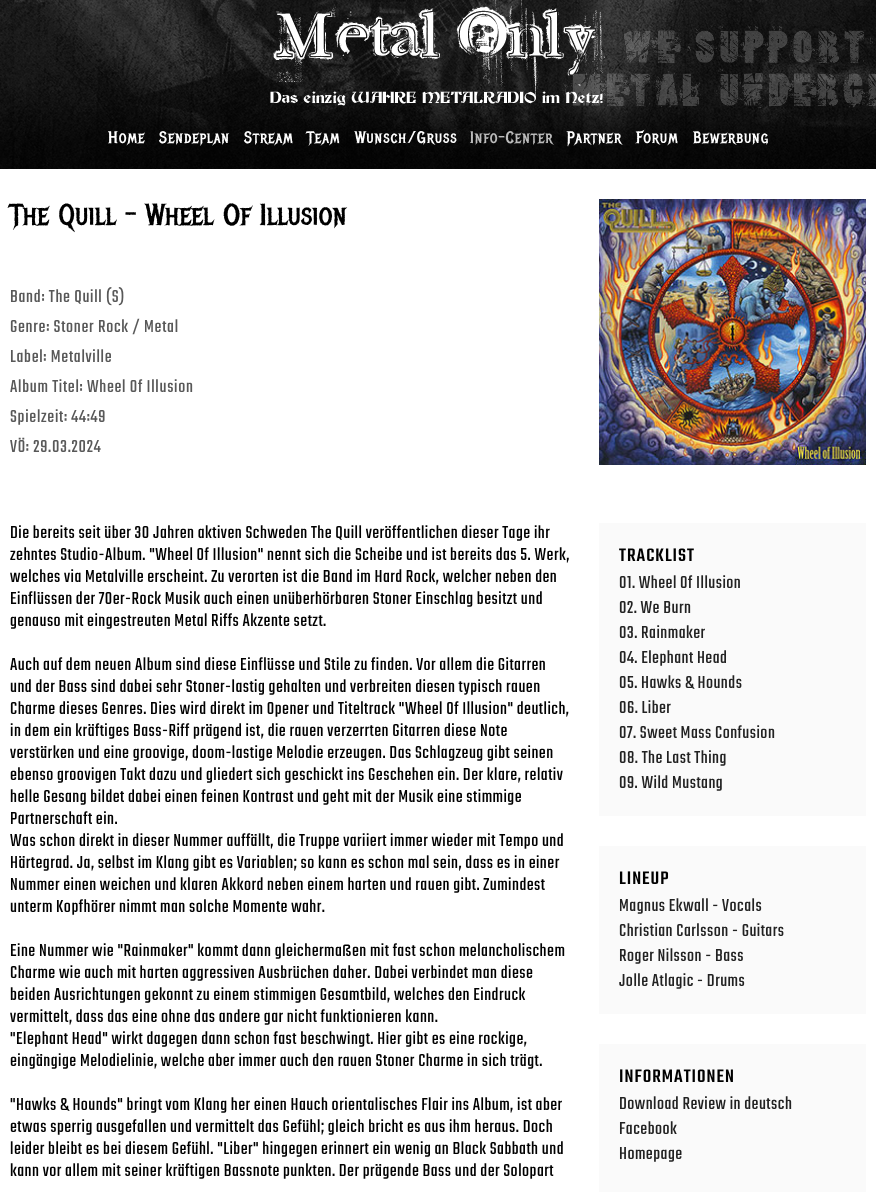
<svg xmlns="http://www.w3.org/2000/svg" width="876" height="1192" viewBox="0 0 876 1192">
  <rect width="100%" height="100%" fill="#ffffff"/>
  <image x="0" y="0" width="876" height="169" href="img1.png"/>
  <image x="270" y="0" width="335" height="106" href="img2.png"/>
  <text x="108" y="143" font-family="Metal Mania" font-size="16.5" letter-spacing="1" fill="#ffffff">Home</text>
  <text x="159" y="143" font-family="Metal Mania" font-size="16.5" letter-spacing="1" fill="#ffffff">Sendeplan</text>
  <text x="244" y="143" font-family="Metal Mania" font-size="16.5" letter-spacing="1" fill="#ffffff">Stream</text>
  <text x="307" y="143" font-family="Metal Mania" font-size="16.5" letter-spacing="1" fill="#ffffff">Team</text>
  <text x="355" y="143" font-family="Metal Mania" font-size="16.5" letter-spacing="1" fill="#ffffff">Wunsch/Gruss</text>
  <text x="470" y="143" font-family="Metal Mania" font-size="16.5" letter-spacing="1" fill="#bbbbbb">Info-Center</text>
  <text x="567" y="143" font-family="Metal Mania" font-size="16.5" letter-spacing="1" fill="#ffffff">Partner</text>
  <text x="636" y="143" font-family="Metal Mania" font-size="16.5" letter-spacing="1" fill="#ffffff">Forum</text>
  <text x="693" y="143" font-family="Metal Mania" font-size="16.5" letter-spacing="1" fill="#ffffff">Bewerbung</text>
  <text x="10" y="225" font-family="Metal Mania" font-size="30" fill="#000000">The Quill - Wheel Of Illusion</text>
  <text x="10" y="302" font-family="Teko" font-size="19" letter-spacing="0.75" fill="#585858">Band: The Quill (S)</text>
  <text x="10" y="332" font-family="Teko" font-size="19" letter-spacing="0.75" fill="#585858">Genre: Stoner Rock / Metal</text>
  <text x="10" y="362" font-family="Teko" font-size="19" letter-spacing="0.75" fill="#585858">Label: Metalville</text>
  <text x="10" y="392" font-family="Teko" font-size="19" letter-spacing="0.75" fill="#585858">Album Titel: Wheel Of Illusion</text>
  <text x="10" y="422" font-family="Teko" font-size="19" letter-spacing="0.75" fill="#585858">Spielzeit: 44:49</text>
  <text x="10" y="452" font-family="Teko" font-size="19" letter-spacing="0.75" fill="#585858">VÖ: 29.03.2024</text>
  <image x="599" y="199" width="267" height="266" href="img3.png"/>
  <text x="10" y="538" font-family="Teko" font-size="19" letter-spacing="0.5" fill="#000000">Die bereits seit über 30 Jahren aktiven Schweden The Quill veröffentlichen dieser Tage ihr</text>
  <text x="10" y="560" font-family="Teko" font-size="19" letter-spacing="0.5" fill="#000000">zehntes Studio-Album. "Wheel Of Illusion" nennt sich die Scheibe und ist bereits das 5. Werk,</text>
  <text x="10" y="582" font-family="Teko" font-size="19" letter-spacing="0.5" fill="#000000">welches via Metalville erscheint. Zu verorten ist die Band im Hard Rock, welcher neben den</text>
  <text x="10" y="604" font-family="Teko" font-size="19" letter-spacing="0.5" fill="#000000">Einflüssen der 70er-Rock Musik auch einen unüberhörbaren Stoner Einschlag besitzt und</text>
  <text x="10" y="626" font-family="Teko" font-size="19" letter-spacing="0.5" fill="#000000">genauso mit eingestreuten Metal Riffs Akzente setzt.</text>
  <text x="10" y="670" font-family="Teko" font-size="19" letter-spacing="0.5" fill="#000000">Auch auf dem neuen Album sind diese Einflüsse und Stile zu finden. Vor allem die Gitarren</text>
  <text x="10" y="692" font-family="Teko" font-size="19" letter-spacing="0.5" fill="#000000">und der Bass sind dabei sehr Stoner-lastig gehalten und verbreiten diesen typisch rauen</text>
  <text x="10" y="714" font-family="Teko" font-size="19" letter-spacing="0.5" fill="#000000">Charme dieses Genres. Dies wird direkt im Opener und Titeltrack "Wheel Of Illusion" deutlich,</text>
  <text x="10" y="736" font-family="Teko" font-size="19" letter-spacing="0.5" fill="#000000">in dem ein kräftiges Bass-Riff prägend ist, die rauen verzerrten Gitarren diese Note</text>
  <text x="10" y="758" font-family="Teko" font-size="19" letter-spacing="0.5" fill="#000000">verstärken und eine groovige, doom-lastige Melodie erzeugen. Das Schlagzeug gibt seinen</text>
  <text x="10" y="780" font-family="Teko" font-size="19" letter-spacing="0.5" fill="#000000">ebenso groovigen Takt dazu und gliedert sich geschickt ins Geschehen ein. Der klare, relativ</text>
  <text x="10" y="802" font-family="Teko" font-size="19" letter-spacing="0.5" fill="#000000">helle Gesang bildet dabei einen feinen Kontrast und geht mit der Musik eine stimmige</text>
  <text x="10" y="824" font-family="Teko" font-size="19" letter-spacing="0.5" fill="#000000">Partnerschaft ein.</text>
  <text x="10" y="846" font-family="Teko" font-size="19" letter-spacing="0.5" fill="#000000">Was schon direkt in dieser Nummer auffällt, die Truppe variiert immer wieder mit Tempo und</text>
  <text x="10" y="868" font-family="Teko" font-size="19" letter-spacing="0.5" fill="#000000">Härtegrad. Ja, selbst im Klang gibt es Variablen; so kann es schon mal sein, dass es in einer</text>
  <text x="10" y="890" font-family="Teko" font-size="19" letter-spacing="0.5" fill="#000000">Nummer einen weichen und klaren Akkord neben einem harten und rauen gibt. Zumindest</text>
  <text x="10" y="912" font-family="Teko" font-size="19" letter-spacing="0.5" fill="#000000">unterm Kopfhörer nimmt man solche Momente wahr.</text>
  <text x="10" y="956" font-family="Teko" font-size="19" letter-spacing="0.5" fill="#000000">Eine Nummer wie "Rainmaker" kommt dann gleichermaßen mit fast schon melancholischem</text>
  <text x="10" y="978" font-family="Teko" font-size="19" letter-spacing="0.5" fill="#000000">Charme wie auch mit harten aggressiven Ausbrüchen daher. Dabei verbindet man diese</text>
  <text x="10" y="1000" font-family="Teko" font-size="19" letter-spacing="0.5" fill="#000000">beiden Ausrichtungen gekonnt zu einem stimmigen Gesamtbild, welches den Eindruck</text>
  <text x="10" y="1022" font-family="Teko" font-size="19" letter-spacing="0.5" fill="#000000">vermittelt, dass das eine ohne das andere gar nicht funktionieren kann.</text>
  <text x="10" y="1044" font-family="Teko" font-size="19" letter-spacing="0.5" fill="#000000">"Elephant Head" wirkt dagegen dann schon fast beschwingt. Hier gibt es eine rockige,</text>
  <text x="10" y="1066" font-family="Teko" font-size="19" letter-spacing="0.5" fill="#000000">eingängige Melodielinie, welche aber immer auch den rauen Stoner Charme in sich trägt.</text>
  <text x="10" y="1110" font-family="Teko" font-size="19" letter-spacing="0.5" fill="#000000">"Hawks &amp; Hounds" bringt vom Klang her einen Hauch orientalisches Flair ins Album, ist aber</text>
  <text x="10" y="1132" font-family="Teko" font-size="19" letter-spacing="0.5" fill="#000000">etwas sperrig ausgefallen und vermittelt das Gefühl; gleich bricht es aus ihm heraus. Doch</text>
  <text x="10" y="1154" font-family="Teko" font-size="19" letter-spacing="0.5" fill="#000000">leider bleibt es bei diesem Gefühl. "Liber" hingegen erinnert ein wenig an Black Sabbath und</text>
  <text x="10" y="1176" font-family="Teko" font-size="19" letter-spacing="0.5" fill="#000000">kann vor allem mit seiner kräftigen Bassnote punkten. Der prägende Bass und der Solopart</text>
  <rect x="599" y="523" width="267" height="293" fill="#fafafa"/>
  <text x="619" y="561" font-family="Teko" font-size="20" font-weight="500" letter-spacing="1" fill="#000000">TRACKLIST</text>
  <text x="619" y="588" font-family="Teko" font-size="19" letter-spacing="0.5" fill="#222222">01. Wheel Of Illusion</text>
  <text x="619" y="613" font-family="Teko" font-size="19" letter-spacing="0.5" fill="#222222">02. We Burn</text>
  <text x="619" y="638" font-family="Teko" font-size="19" letter-spacing="0.5" fill="#222222">03. Rainmaker</text>
  <text x="619" y="663" font-family="Teko" font-size="19" letter-spacing="0.5" fill="#222222">04. Elephant Head</text>
  <text x="619" y="688" font-family="Teko" font-size="19" letter-spacing="0.5" fill="#222222">05. Hawks &amp; Hounds</text>
  <text x="619" y="713" font-family="Teko" font-size="19" letter-spacing="0.5" fill="#222222">06. Liber</text>
  <text x="619" y="738" font-family="Teko" font-size="19" letter-spacing="0.5" fill="#222222">07. Sweet Mass Confusion</text>
  <text x="619" y="763" font-family="Teko" font-size="19" letter-spacing="0.5" fill="#222222">08. The Last Thing</text>
  <text x="619" y="788" font-family="Teko" font-size="19" letter-spacing="0.5" fill="#222222">09. Wild Mustang</text>
  <rect x="599" y="846" width="267" height="168" fill="#fafafa"/>
  <text x="619" y="884" font-family="Teko" font-size="20" font-weight="500" letter-spacing="1" fill="#000000">LINEUP</text>
  <text x="619" y="911" font-family="Teko" font-size="19" letter-spacing="0.5" fill="#222222">Magnus Ekwall - Vocals</text>
  <text x="619" y="936" font-family="Teko" font-size="19" letter-spacing="0.5" fill="#222222">Christian Carlsson - Guitars</text>
  <text x="619" y="961" font-family="Teko" font-size="19" letter-spacing="0.5" fill="#222222">Roger Nilsson - Bass</text>
  <text x="619" y="986" font-family="Teko" font-size="19" letter-spacing="0.5" fill="#222222">Jolle Atlagic - Drums</text>
  <rect x="599" y="1044" width="267" height="148" fill="#fafafa"/>
  <text x="619" y="1082" font-family="Teko" font-size="20" font-weight="500" letter-spacing="1" fill="#000000">INFORMATIONEN</text>
  <text x="619" y="1109" font-family="Teko" font-size="19" letter-spacing="0.5" fill="#222222">Download Review in deutsch</text>
  <text x="619" y="1134" font-family="Teko" font-size="19" letter-spacing="0.5" fill="#222222">Facebook</text>
  <text x="619" y="1159" font-family="Teko" font-size="19" letter-spacing="0.5" fill="#222222">Homepage</text>
</svg>
